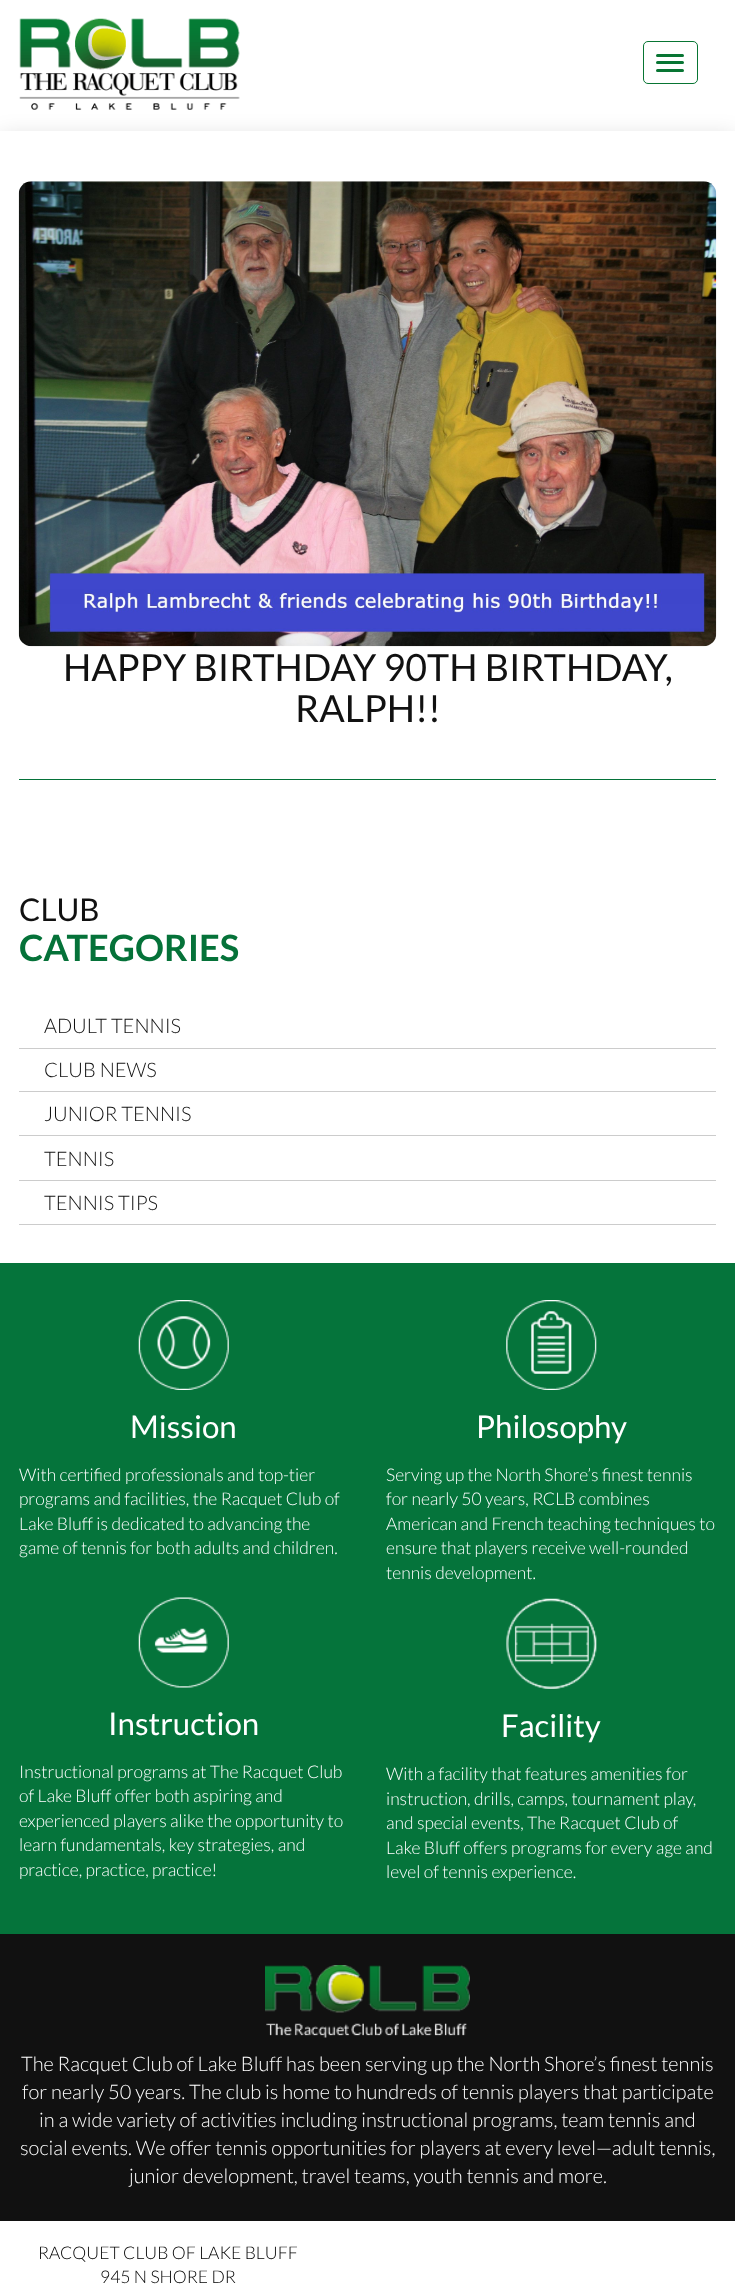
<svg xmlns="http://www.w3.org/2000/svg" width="735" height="2284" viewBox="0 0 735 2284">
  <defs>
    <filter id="blur1" x="-50%" y="-200%" width="200%" height="500%"><feGaussianBlur stdDeviation="12.5"/></filter>
  </defs>
  <rect width="100%" height="100%" fill="#ffffff"/>
  <rect x="0" y="139" width="735" height="1131" fill="#000000" fill-opacity="0.19" filter="url(#blur1)"/>
  <image x="19" y="18" width="221" height="92" href="img1.png"/>
  <rect x="643.5" y="41.5" width="54" height="42" rx="4.5" fill="none" stroke="#087533"/>
  <rect x="656" y="54" width="28" height="3" rx="1.5" fill="#087533"/>
  <rect x="656" y="61" width="28" height="3" rx="1.5" fill="#087533"/>
  <rect x="656" y="69" width="28" height="3" rx="1.5" fill="#087533"/>
  <rect x="0" y="131" width="735" height="1132" fill="#ffffff"/>
  <rect x="19" y="779" width="697" height="1" fill="#057239"/>
  <image x="18" y="181" width="699" height="466" href="img2.png"/>
  <text x="63" y="681" font-family="Lato" font-size="37.5" fill="#111111">HAPPY BIRTHDAY 90TH BIRTHDAY,</text>
  <text x="295" y="722" font-family="Lato" font-size="37.5" fill="#111111">RALPH!!</text>
  <text x="19" y="921" font-family="Lato" font-size="31.25" fill="#111111">CLUB</text>
  <text x="19" y="961" font-family="Lato" font-size="36.25" font-weight="bold" fill="#057239">CATEGORIES</text>
  <rect x="19" y="1048" width="697" height="1" fill="#cccccc"/>
  <text x="44" y="1033" font-family="Lato" font-size="20" font-weight="300" fill="#111111">ADULT TENNIS</text>
  <rect x="19" y="1091" width="697" height="1" fill="#cccccc"/>
  <text x="44" y="1077" font-family="Lato" font-size="20" font-weight="300" fill="#111111">CLUB NEWS</text>
  <rect x="19" y="1135" width="697" height="1" fill="#cccccc"/>
  <text x="44" y="1121" font-family="Lato" font-size="20" font-weight="300" fill="#111111">JUNIOR TENNIS</text>
  <rect x="19" y="1180" width="697" height="1" fill="#cccccc"/>
  <text x="44" y="1166" font-family="Lato" font-size="20" font-weight="300" fill="#111111">TENNIS</text>
  <rect x="19" y="1224" width="697" height="1" fill="#cccccc"/>
  <text x="44" y="1210" font-family="Lato" font-size="20" font-weight="300" fill="#111111">TENNIS TIPS</text>
  <rect x="0" y="1263" width="735" height="671" fill="#05743b"/>
  <image x="138" y="1300" width="91" height="90" href="img3.png"/>
  <text x="130" y="1438" font-family="Lato" font-size="31.25" fill="#ffffff">Mission</text>
  <text x="19" y="1481" font-family="Lato" font-size="17.5" font-weight="300" fill="#ffffff">With certified professionals and top-tier</text>
  <text x="19" y="1505" font-family="Lato" font-size="17.5" font-weight="300" fill="#ffffff">programs and facilities, the Racquet Club of</text>
  <text x="19" y="1530" font-family="Lato" font-size="17.5" font-weight="300" fill="#ffffff">Lake Bluff is dedicated to advancing the</text>
  <text x="19" y="1554" font-family="Lato" font-size="17.5" font-weight="300" fill="#ffffff">game of tennis for both adults and children.</text>
  <image x="506" y="1300" width="91" height="90" href="img4.png"/>
  <text x="476" y="1438" font-family="Lato" font-size="31.25" fill="#ffffff">Philosophy</text>
  <text x="386" y="1481" font-family="Lato" font-size="17.5" font-weight="300" fill="#ffffff">Serving up the North Shore’s finest tennis</text>
  <text x="386" y="1505" font-family="Lato" font-size="17.5" font-weight="300" fill="#ffffff">for nearly 50 years, RCLB combines</text>
  <text x="386" y="1530" font-family="Lato" font-size="17.5" font-weight="300" fill="#ffffff">American and French teaching techniques to</text>
  <text x="386" y="1554" font-family="Lato" font-size="17.5" font-weight="300" fill="#ffffff">ensure that players receive well-rounded</text>
  <text x="386" y="1579" font-family="Lato" font-size="17.5" font-weight="300" fill="#ffffff">tennis development.</text>
  <image x="138" y="1597" width="91" height="91" href="img5.png"/>
  <text x="108" y="1735" font-family="Lato" font-size="31.25" fill="#ffffff">Instruction</text>
  <text x="19" y="1778" font-family="Lato" font-size="17.5" font-weight="300" fill="#ffffff">Instructional programs at The Racquet Club</text>
  <text x="19" y="1802" font-family="Lato" font-size="17.5" font-weight="300" fill="#ffffff">of Lake Bluff offer both aspiring and</text>
  <text x="19" y="1827" font-family="Lato" font-size="17.5" font-weight="300" fill="#ffffff">experienced players alike the opportunity to</text>
  <text x="19" y="1851" font-family="Lato" font-size="17.5" font-weight="300" fill="#ffffff">learn fundamentals, key strategies, and</text>
  <text x="19" y="1876" font-family="Lato" font-size="17.5" font-weight="300" fill="#ffffff">practice, practice, practice!</text>
  <image x="506" y="1598" width="91" height="91" href="img6.png"/>
  <text x="501" y="1737" font-family="Lato" font-size="31.25" fill="#ffffff">Facility</text>
  <text x="386" y="1780" font-family="Lato" font-size="17.5" font-weight="300" fill="#ffffff">With a facility that features amenities for</text>
  <text x="386" y="1805" font-family="Lato" font-size="17.5" font-weight="300" fill="#ffffff">instruction, drills, camps, tournament play,</text>
  <text x="386" y="1829" font-family="Lato" font-size="17.5" font-weight="300" fill="#ffffff">and special events, The Racquet Club of</text>
  <text x="386" y="1854" font-family="Lato" font-size="17.5" font-weight="300" fill="#ffffff">Lake Bluff offers programs for every age and</text>
  <text x="386" y="1878" font-family="Lato" font-size="17.5" font-weight="300" fill="#ffffff">level of tennis experience.</text>
  <rect x="0" y="1934" width="735" height="287" fill="#111111"/>
  <image x="265" y="1965" width="205" height="73" href="img7.png"/>
  <text x="21" y="2071" font-family="Lato" font-size="20" font-weight="300" fill="#ffffff">The Racquet Club of Lake Bluff has been serving up the North Shore’s finest tennis</text>
  <text x="22" y="2099" font-family="Lato" font-size="20" font-weight="300" fill="#ffffff">for nearly 50 years. The club is home to hundreds of tennis players that participate</text>
  <text x="39" y="2127" font-family="Lato" font-size="20" font-weight="300" fill="#ffffff">in a wide variety of activities including instructional programs, team tennis and</text>
  <text x="20" y="2155" font-family="Lato" font-size="20" font-weight="300" fill="#ffffff">social events. We offer tennis opportunities for players at every level—adult tennis,</text>
  <text x="129" y="2183" font-family="Lato" font-size="20" font-weight="300" fill="#ffffff">junior development, travel teams, youth tennis and more.</text>
  <text x="38" y="2259" font-family="Lato" font-size="17.5" font-weight="300" fill="#000000">RACQUET CLUB OF LAKE BLUFF</text>
  <text x="100" y="2283" font-family="Lato" font-size="17.5" font-weight="300" fill="#000000">945 N SHORE DR</text>
</svg>
